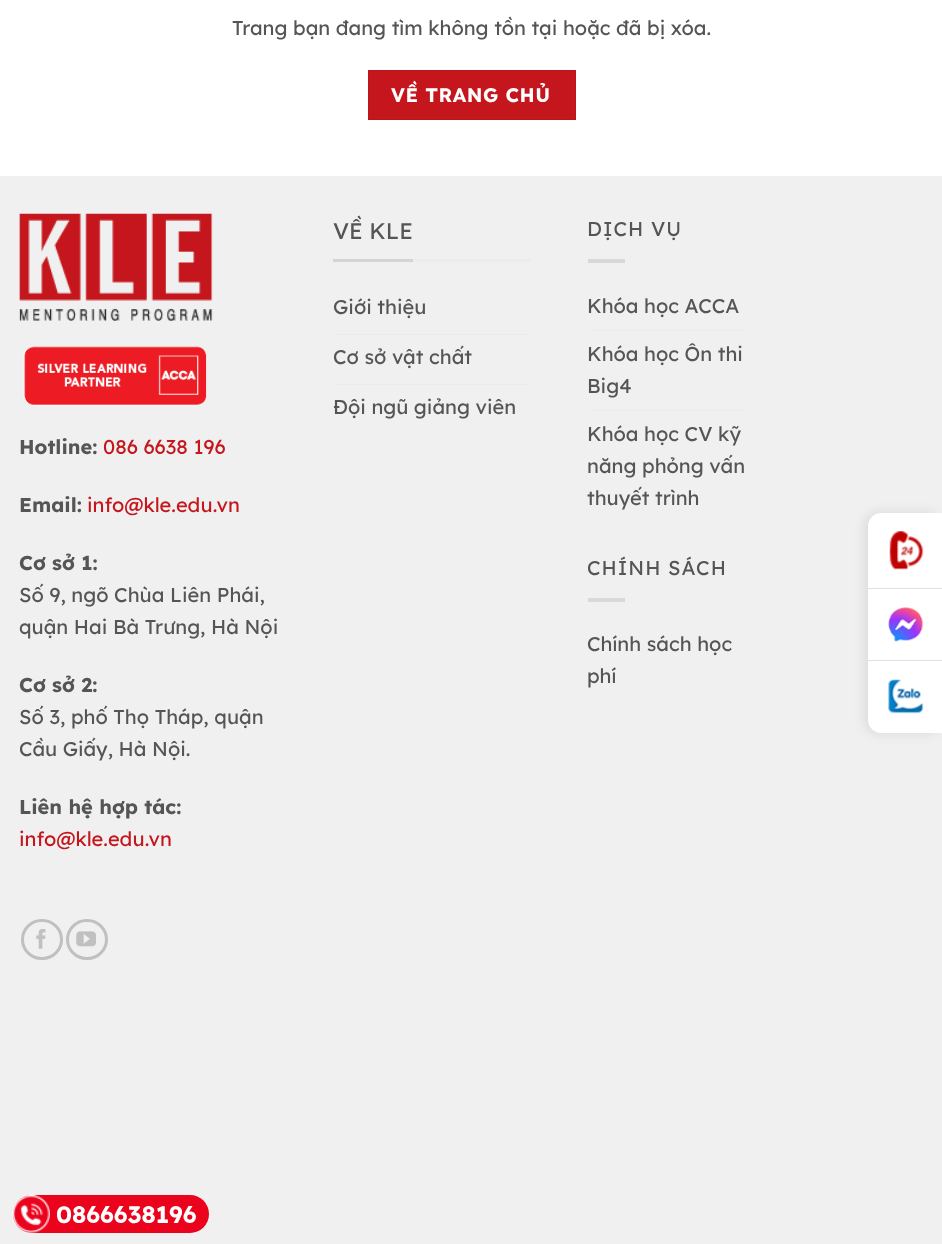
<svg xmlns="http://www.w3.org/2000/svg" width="942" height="1244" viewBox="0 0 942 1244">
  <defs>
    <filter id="blur1" x="-50%" y="-200%" width="200%" height="500%"><feGaussianBlur stdDeviation="6"/></filter>
  </defs>
  <rect width="100%" height="100%" fill="#ffffff"/>
  <text x="232" y="35" font-family="Lexend Deca" font-size="20" fill="#555555">Trang bạn đang tìm không tồn tại hoặc đã bị xóa.</text>
  <rect x="368.5" y="70.5" width="207" height="49" fill="#c4161c" stroke="#ba151b"/>
  <text x="391" y="102" font-family="Lexend Deca" font-size="19.5" font-weight="bold" letter-spacing="0.5" fill="#ffffff">VỀ TRANG CHỦ</text>
  <rect x="0" y="176" width="942" height="1068" fill="#f0f0f0"/>
  <image x="19" y="213" width="194" height="108" href="img1.png"/>
  <image x="23" y="346" width="184" height="60" href="img2.png"/>
  <text x="19" y="454" font-family="Lexend Deca" font-size="20" font-weight="bold" fill="#555555">Hotline:</text>
  <text x="103" y="454" font-family="Lexend Deca" font-size="20" fill="#c4161c">086 6638 196</text>
  <text x="19" y="512" font-family="Lexend Deca" font-size="20" font-weight="bold" fill="#555555">Email:</text>
  <text x="87" y="512" font-family="Lexend Deca" font-size="20" fill="#c4161c">info@kle.edu.vn</text>
  <text x="19" y="570" font-family="Lexend Deca" font-size="20" font-weight="bold" fill="#555555">Cơ sở 1:</text>
  <text x="19" y="602" font-family="Lexend Deca" font-size="20" fill="#555555">Số 9, ngõ Chùa Liên Phái,</text>
  <text x="19" y="634" font-family="Lexend Deca" font-size="20" fill="#555555">quận Hai Bà Trưng, Hà Nội</text>
  <text x="19" y="692" font-family="Lexend Deca" font-size="20" font-weight="bold" fill="#555555">Cơ sở 2:</text>
  <text x="19" y="724" font-family="Lexend Deca" font-size="20" fill="#555555">Số 3, phố Thọ Tháp, quận</text>
  <text x="19" y="756" font-family="Lexend Deca" font-size="20" fill="#555555">Cầu Giấy, Hà Nội.</text>
  <text x="19" y="814" font-family="Lexend Deca" font-size="20" font-weight="bold" fill="#555555">Liên hệ hợp tác:</text>
  <text x="19" y="846" font-family="Lexend Deca" font-size="20" fill="#c4161c">info@kle.edu.vn</text>
  <rect x="22.5" y="920.5" width="39" height="38" rx="19" fill="none" stroke="#c0c0c0" stroke-width="3"/>
  <image x="36" y="929" width="10" height="20" href="img3.png"/>
  <rect x="67.5" y="920.5" width="39" height="38" rx="19" fill="none" stroke="#c0c0c0" stroke-width="3"/>
  <image x="76" y="931" width="20" height="16" href="img4.png"/>
  <rect x="413" y="259" width="118" height="3" fill="#ececec"/>
  <rect x="333" y="259" width="80" height="3" fill="#d4d4d4"/>
  <text x="333" y="239" font-family="Lexend Deca" font-size="22.5" fill="#555555">VỀ KLE</text>
  <rect x="333" y="334" width="198" height="1" fill="#ececec"/>
  <text x="333" y="314" font-family="Lexend Deca" font-size="20" fill="#555555">Giới thiệu</text>
  <rect x="333" y="384" width="198" height="1" fill="#ececec"/>
  <text x="333" y="364" font-family="Lexend Deca" font-size="20" fill="#555555">Cơ sở vật chất</text>
  <text x="333" y="414" font-family="Lexend Deca" font-size="20" fill="#555555">Đội ngũ giảng viên</text>
  <text x="587" y="236" font-family="Lexend Deca" font-size="20" letter-spacing="1" fill="#555555">DỊCH VỤ</text>
  <rect x="588" y="259" width="37" height="4" fill="#d8d8d8"/>
  <text x="587" y="313" font-family="Lexend Deca" font-size="20" fill="#555555">Khóa học ACCA</text>
  <rect x="588" y="330" width="160" height="1" fill="#ececec"/>
  <text x="587" y="361" font-family="Lexend Deca" font-size="20" fill="#555555">Khóa học Ôn thi</text>
  <text x="587" y="393" font-family="Lexend Deca" font-size="20" fill="#555555">Big4</text>
  <rect x="588" y="410" width="160" height="1" fill="#ececec"/>
  <text x="587" y="441" font-family="Lexend Deca" font-size="20" fill="#555555">Khóa học CV kỹ</text>
  <text x="587" y="473" font-family="Lexend Deca" font-size="20" fill="#555555">năng phỏng vấn</text>
  <text x="587" y="505" font-family="Lexend Deca" font-size="20" fill="#555555">thuyết trình</text>
  <text x="587" y="575" font-family="Lexend Deca" font-size="20" letter-spacing="1" fill="#555555">CHÍNH SÁCH</text>
  <rect x="588" y="598" width="37" height="4" fill="#d8d8d8"/>
  <text x="587" y="651" font-family="Lexend Deca" font-size="20" fill="#555555">Chính sách học</text>
  <text x="587" y="683" font-family="Lexend Deca" font-size="20" fill="#555555">phí</text>
  <rect x="865" y="513" width="75" height="220" rx="13" fill="#000000" fill-opacity="0.1" filter="url(#blur1)"/>
  <path d="M881 513H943V733H881C874 733 868 727 868 720V526C868 519 874 513 881 513Z" fill="#ffffff"/>
  <rect x="868" y="588" width="74" height="1" fill="#dee2e6"/>
  <image x="889" y="531" width="35" height="39" href="img5.png"/>
  <rect x="868" y="660" width="74" height="1" fill="#dee2e6"/>
  <image x="888" y="607" width="36" height="35" href="img6.png"/>
  <image x="888" y="679" width="36" height="35" href="img7.png"/>
  <rect x="13" y="1195" width="196" height="38" rx="19" fill="#eb021d"/>
  <image x="12" y="1195" width="38" height="38" href="img8.png"/>
  <text x="56" y="1223" font-family="Lexend Deca" font-size="23.75" font-weight="bold" fill="#ffffff">0866638196</text>
</svg>
